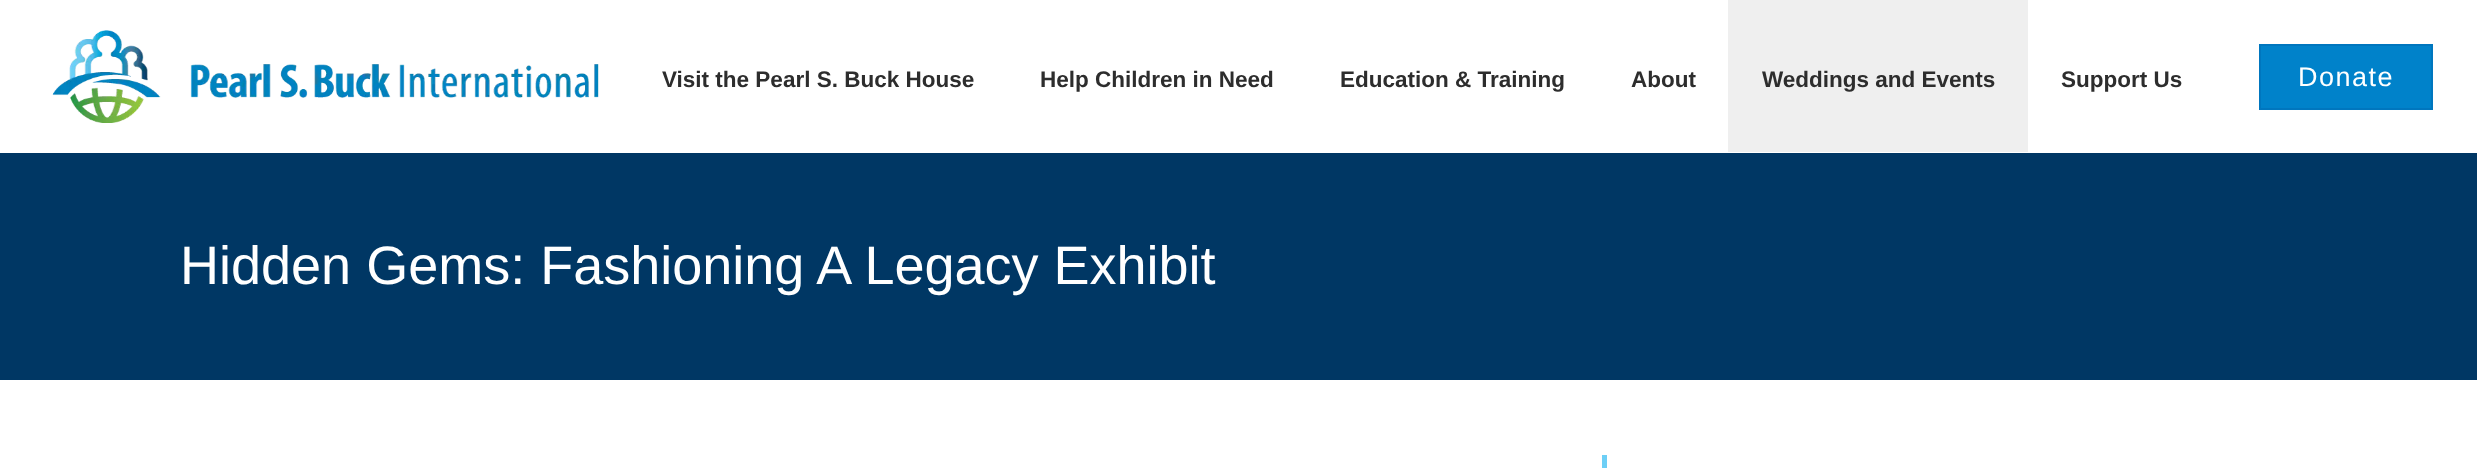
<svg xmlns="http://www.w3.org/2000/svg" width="2477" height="468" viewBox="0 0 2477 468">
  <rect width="100%" height="100%" fill="#ffffff"/>
  <image x="52" y="30" width="547" height="93" href="img1.png"/>
  <text x="662" y="87" font-family="Liberation Sans" font-size="22.5" font-weight="bold" fill="#2d2d2d">Visit the Pearl S. Buck House</text>
  <text x="1040" y="87" font-family="Liberation Sans" font-size="22.5" font-weight="bold" fill="#2d2d2d">Help Children in Need</text>
  <text x="1340" y="87" font-family="Liberation Sans" font-size="22.5" font-weight="bold" fill="#2d2d2d">Education &amp; Training</text>
  <text x="1631" y="87" font-family="Liberation Sans" font-size="22.5" font-weight="bold" fill="#2d2d2d">About</text>
  <rect x="1728" y="0" width="300" height="152" fill="#efefef"/>
  <text x="1762" y="87" font-family="Liberation Sans" font-size="22.5" font-weight="bold" fill="#2d2d2d">Weddings and Events</text>
  <text x="2061" y="87" font-family="Liberation Sans" font-size="22.5" font-weight="bold" fill="#2d2d2d">Support Us</text>
  <rect x="2260" y="45" width="172" height="64" fill="#0082ca" stroke="#0076be" stroke-width="2"/>
  <text x="2298" y="86" font-family="Liberation Sans" font-size="27" letter-spacing="1.5" fill="#ffffff">Donate</text>
  <rect x="0" y="153" width="2477" height="227" fill="#003764"/>
  <text x="180" y="284" font-family="Liberation Sans" font-size="54" fill="#ffffff">Hidden Gems: Fashioning A Legacy Exhibit</text>
  <rect x="1602" y="455" width="5" height="13" fill="#6dcff6"/>
</svg>
